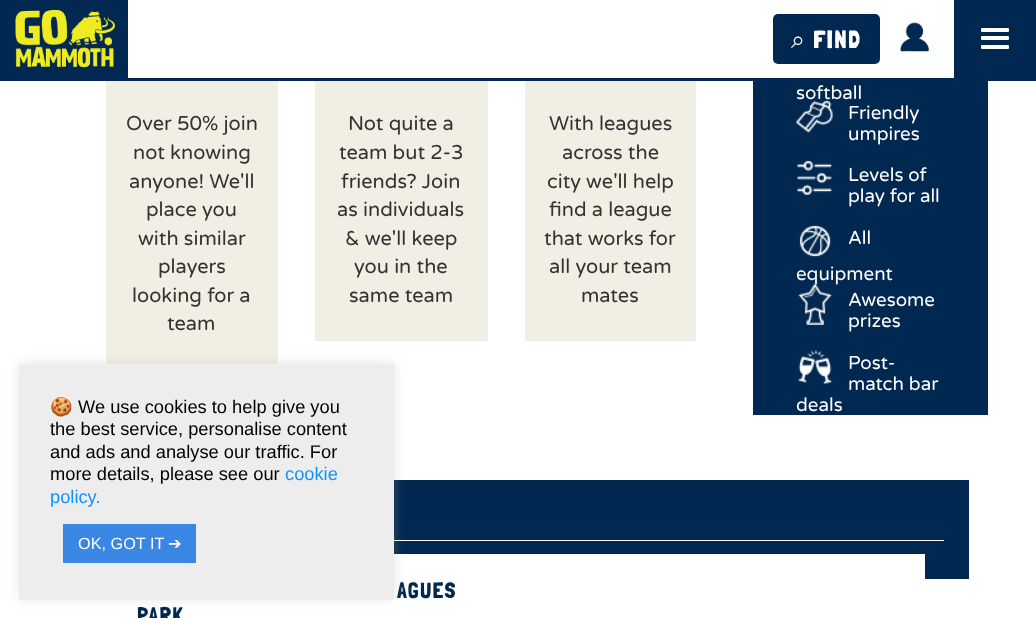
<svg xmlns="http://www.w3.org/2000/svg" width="1036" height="618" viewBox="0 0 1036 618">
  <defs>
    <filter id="blur1" x="-50%" y="-200%" width="200%" height="500%"><feGaussianBlur stdDeviation="6"/></filter>
  </defs>
  <rect width="100%" height="100%" fill="#ffffff"/>
  <rect x="0" y="78" width="1036" height="3" fill="#002850"/>
  <rect x="0" y="0" width="128" height="78" fill="#002850"/>
  <rect x="954" y="0" width="82" height="78" fill="#002850"/>
  <rect x="981" y="28" width="28" height="4" rx="1" fill="#ffffff"/>
  <rect x="981" y="36" width="28" height="4" rx="1" fill="#ffffff"/>
  <rect x="981" y="45" width="28" height="4" rx="1" fill="#ffffff"/>
  <image x="15" y="9" width="100" height="59" href="img1.png"/>
  <rect x="773" y="14" width="107" height="50" rx="5" fill="#002850"/>
  <text x="791" y="48" font-family="FreeSerif" font-size="25" letter-spacing="1.25" fill="#ffffff">⌕</text>
  <text x="813" y="48" font-family="Londrina Solid" font-size="25" letter-spacing="1.25" fill="#ffffff">FIND</text>
  <image x="900" y="22" width="29" height="30" href="img2.png"/>
  <rect x="106" y="81" width="172" height="283" fill="#f1eee4"/>
  <text x="126" y="130" font-family="Varela Round" font-size="20" fill="#333333">Over 50% join</text>
  <text x="133" y="159" font-family="Varela Round" font-size="20" fill="#333333">not knowing</text>
  <text x="129" y="188" font-family="Varela Round" font-size="20" fill="#333333">anyone! We'll</text>
  <text x="146" y="216" font-family="Varela Round" font-size="20" fill="#333333">place you</text>
  <text x="138" y="245" font-family="Varela Round" font-size="20" fill="#333333">with similar</text>
  <text x="158" y="273" font-family="Varela Round" font-size="20" fill="#333333">players</text>
  <text x="132" y="302" font-family="Varela Round" font-size="20" fill="#333333">looking for a</text>
  <text x="167" y="330" font-family="Varela Round" font-size="20" fill="#333333">team</text>
  <rect x="315" y="81" width="173" height="260" fill="#f1eee4"/>
  <text x="348" y="130" font-family="Varela Round" font-size="20" fill="#333333">Not quite a</text>
  <text x="339" y="159" font-family="Varela Round" font-size="20" fill="#333333">team but 2-3</text>
  <text x="341" y="188" font-family="Varela Round" font-size="20" fill="#333333">friends? Join</text>
  <text x="337" y="216" font-family="Varela Round" font-size="20" fill="#333333">as individuals</text>
  <text x="345" y="245" font-family="Varela Round" font-size="20" fill="#333333">&amp; we'll keep</text>
  <text x="354" y="273" font-family="Varela Round" font-size="20" fill="#333333">you in the</text>
  <text x="349" y="302" font-family="Varela Round" font-size="20" fill="#333333">same team</text>
  <rect x="525" y="81" width="171" height="260" fill="#f1eee4"/>
  <text x="549" y="130" font-family="Varela Round" font-size="20" fill="#333333">With leagues</text>
  <text x="562" y="159" font-family="Varela Round" font-size="20" fill="#333333">across the</text>
  <text x="547" y="188" font-family="Varela Round" font-size="20" fill="#333333">city we'll help</text>
  <text x="549" y="216" font-family="Varela Round" font-size="20" fill="#333333">find a league</text>
  <text x="544" y="245" font-family="Varela Round" font-size="20" fill="#333333">that works for</text>
  <text x="549" y="273" font-family="Varela Round" font-size="20" fill="#333333">all your team</text>
  <text x="581" y="302" font-family="Varela Round" font-size="20" fill="#333333">mates</text>
  <rect x="753" y="81" width="235" height="334" fill="#002850"/>
  <text x="796" y="99" font-family="Varela Round" font-size="18.75" fill="#ffffff">softball</text>
  <image x="796" y="100" width="37" height="33" href="img3.png"/>
  <text x="848" y="119" font-family="Varela Round" font-size="18.75" fill="#ffffff">Friendly</text>
  <text x="848" y="140" font-family="Varela Round" font-size="18.75" fill="#ffffff">umpires</text>
  <image x="797" y="160" width="35" height="35" href="img4.png"/>
  <text x="848" y="181" font-family="Varela Round" font-size="18.75" fill="#ffffff">Levels of</text>
  <text x="848" y="202" font-family="Varela Round" font-size="18.75" fill="#ffffff">play for all</text>
  <image x="799" y="225" width="32" height="32" href="img5.png"/>
  <text x="848" y="244" font-family="Varela Round" font-size="18.75" fill="#ffffff">All</text>
  <image x="798" y="283" width="34" height="42" href="img6.png"/>
  <text x="796" y="280" font-family="Varela Round" font-size="18.75" fill="#ffffff">equipment</text>
  <text x="848" y="306" font-family="Varela Round" font-size="18.75" fill="#ffffff">Awesome</text>
  <text x="848" y="327" font-family="Varela Round" font-size="18.75" fill="#ffffff">prizes</text>
  <image x="798" y="349" width="34" height="35" href="img7.png"/>
  <text x="848" y="369" font-family="Varela Round" font-size="18.75" fill="#ffffff">Post-</text>
  <text x="848" y="390" font-family="Varela Round" font-size="18.75" fill="#ffffff">match bar</text>
  <text x="796" y="411" font-family="Varela Round" font-size="18.75" fill="#ffffff">deals</text>
  <rect x="394" y="480" width="575" height="99" fill="#002850"/>
  <rect x="394" y="540" width="550" height="1" fill="#ffffff"/>
  <rect x="394" y="554" width="531" height="25" fill="#ffffff"/>
  <text x="397" y="598" font-family="Londrina Solid" font-size="22.5" letter-spacing="1.25" fill="#002850">AGUES</text>
  <text x="137" y="623" font-family="Londrina Solid" font-size="22.5" letter-spacing="1.25" fill="#002850">PARK</text>
  <rect x="19" y="363" width="375" height="236" fill="#acabab" fill-opacity="0.3" filter="url(#blur1)"/>
  <rect x="19" y="364" width="375" height="236" fill="#ededed"/>
  <text x="50" y="413" font-family="Noto Color Emoji" font-size="18.3" fill="#000000">🍪</text>
  <text x="78" y="413" font-family="Liberation Sans" font-size="18.3" fill="#000000">We use cookies to help give you</text>
  <text x="50" y="435" font-family="Liberation Sans" font-size="18.3" fill="#000000">the best service, personalise content</text>
  <text x="50" y="458" font-family="Liberation Sans" font-size="18.3" fill="#000000">and ads and analyse our traffic. For</text>
  <text x="50" y="480" font-family="Liberation Sans" font-size="18.3" fill="#000000">more details, please see our</text>
  <text x="285" y="480" font-family="Liberation Sans" font-size="18.3" fill="#1193f9">cookie</text>
  <text x="50" y="503" font-family="Liberation Sans" font-size="18.3" fill="#1193f9">policy.</text>
  <rect x="63" y="524" width="133" height="39" fill="#3986e5"/>
  <text x="78" y="549" font-family="Liberation Sans" font-size="16.25" fill="#ffffff">OK, GOT IT</text>
  <text x="168" y="549" font-family="DejaVu Sans" font-size="16.25" fill="#ffffff">➔</text>
</svg>
